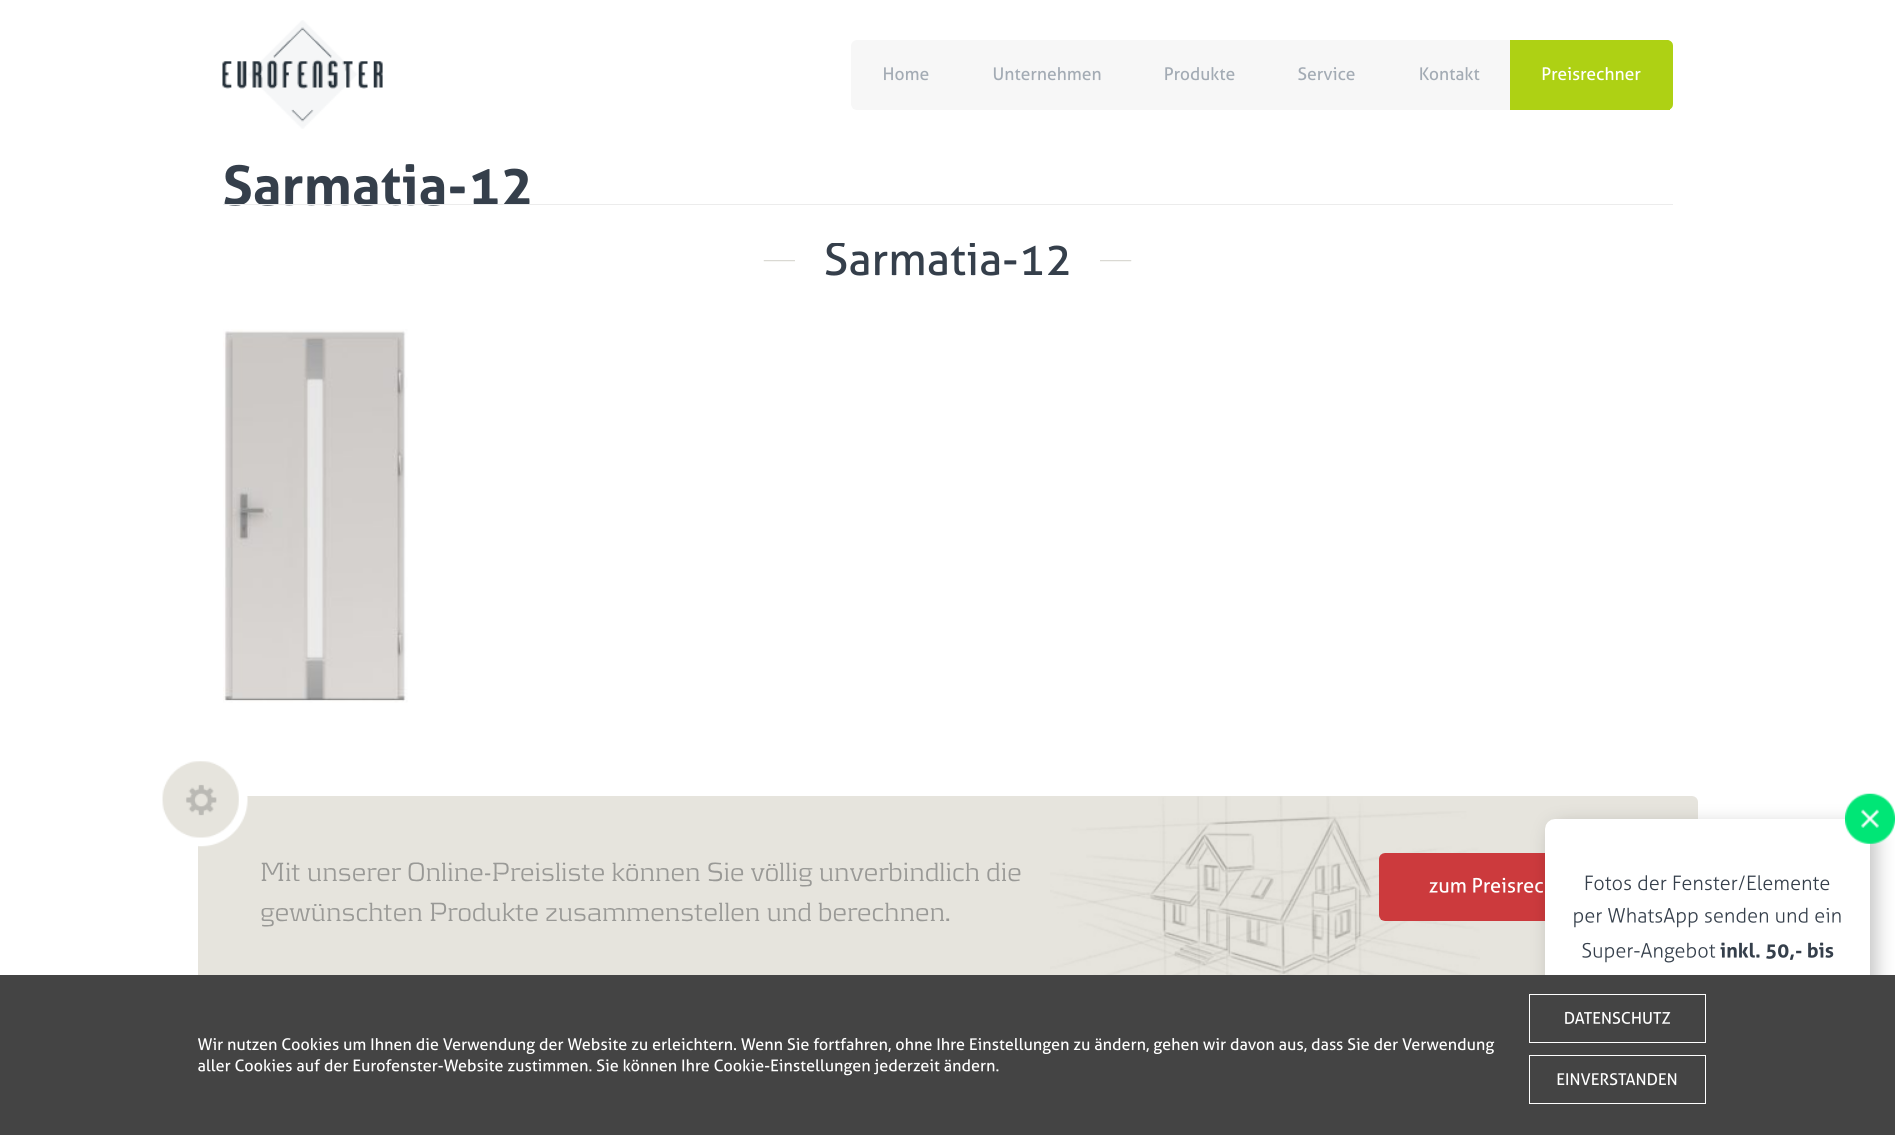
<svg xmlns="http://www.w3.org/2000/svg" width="1895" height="1135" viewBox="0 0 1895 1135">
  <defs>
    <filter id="blur1" x="-50%" y="-200%" width="200%" height="500%"><feGaussianBlur stdDeviation="9.5"/></filter>
  </defs>
  <rect width="100%" height="100%" fill="#ffffff"/>
  <image x="222" y="20" width="161" height="109" href="img1.png"/>
  <rect x="851" y="40" width="822" height="70" rx="6" fill="#f7f7f7"/>
  <image x="884" y="67" width="45" height="14" href="img2.png"/>
  <image x="993" y="67" width="108" height="14" href="img3.png"/>
  <image x="1165" y="67" width="70" height="14" href="img4.png"/>
  <image x="1298" y="67" width="57" height="14" href="img5.png"/>
  <image x="1420" y="67" width="60" height="14" href="img6.png"/>
  <path d="M1510 40H1667C1670.5 40 1673 42.5 1673 46V104C1673 107.5 1670.5 110 1667 110H1510Z" fill="#aed114"/>
  <rect x="1667" y="109" width="3" height="1" fill="#aed114"/>
  <image x="1542" y="67" width="99" height="14" href="img7.png"/>
  <image x="224" y="164" width="306" height="42" href="img8.png"/>
  <rect x="223" y="204" width="1450" height="1" fill="#ececec"/>
  <image x="763" y="260" width="32" height="2" href="img9.png"/>
  <image x="825" y="243" width="244" height="33" href="img10.png"/>
  <image x="1100" y="260" width="32" height="2" href="img11.png"/>
  <image x="223" y="329" width="185" height="374" href="img12.png"/>
  <rect x="198" y="796" width="1500" height="194" rx="6" fill="#e6e4dd"/>
  <image x="1050" y="796" width="430" height="179" href="img13.png"/>
  <image x="162" y="761" width="86" height="86" href="img14.png"/>
  <text x="260" y="881" font-family="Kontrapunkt" font-size="27.5" font-weight="300" fill="#999996">Mit unserer Online-Preisliste können Sie völlig unverbindlich die</text>
  <text x="260" y="921" font-family="Kontrapunkt" font-size="27.5" font-weight="300" fill="#999996">gewünschten Produkte zusammenstellen und berechnen.</text>
  <rect x="1379" y="853" width="256" height="68" rx="6" fill="#cc3a3d"/>
  <image x="1429" y="877" width="114" height="16" href="img15.png"/>
  <rect x="1551" y="825" width="325" height="249" rx="10" fill="#000000" fill-opacity="0.24" filter="url(#blur1)"/>
  <rect x="1545" y="819" width="325" height="249" rx="10" fill="#ffffff"/>
  <image x="1845" y="793" width="50" height="51" href="img16.png"/>
  <image x="1585" y="875" width="245" height="16" href="img17.png"/>
  <image x="1574" y="907" width="267" height="21" href="img18.png"/>
  <image x="1582" y="942" width="134" height="21" href="img19.png"/>
  <image x="1720" y="942" width="114" height="18" href="img20.png"/>
  <rect x="0" y="975" width="1895" height="160" fill="#444444"/>
  <image x="198" y="1037" width="1297" height="17" href="img21.png"/>
  <image x="198" y="1059" width="801" height="17" href="img22.png"/>
  <rect x="1529.5" y="994.5" width="176" height="48" fill="none" stroke="#ffffff"/>
  <image x="1565" y="1011" width="106" height="13" href="img23.png"/>
  <rect x="1529.5" y="1055.5" width="176" height="48" fill="none" stroke="#ffffff"/>
  <image x="1557" y="1073" width="120" height="13" href="img24.png"/>
</svg>
